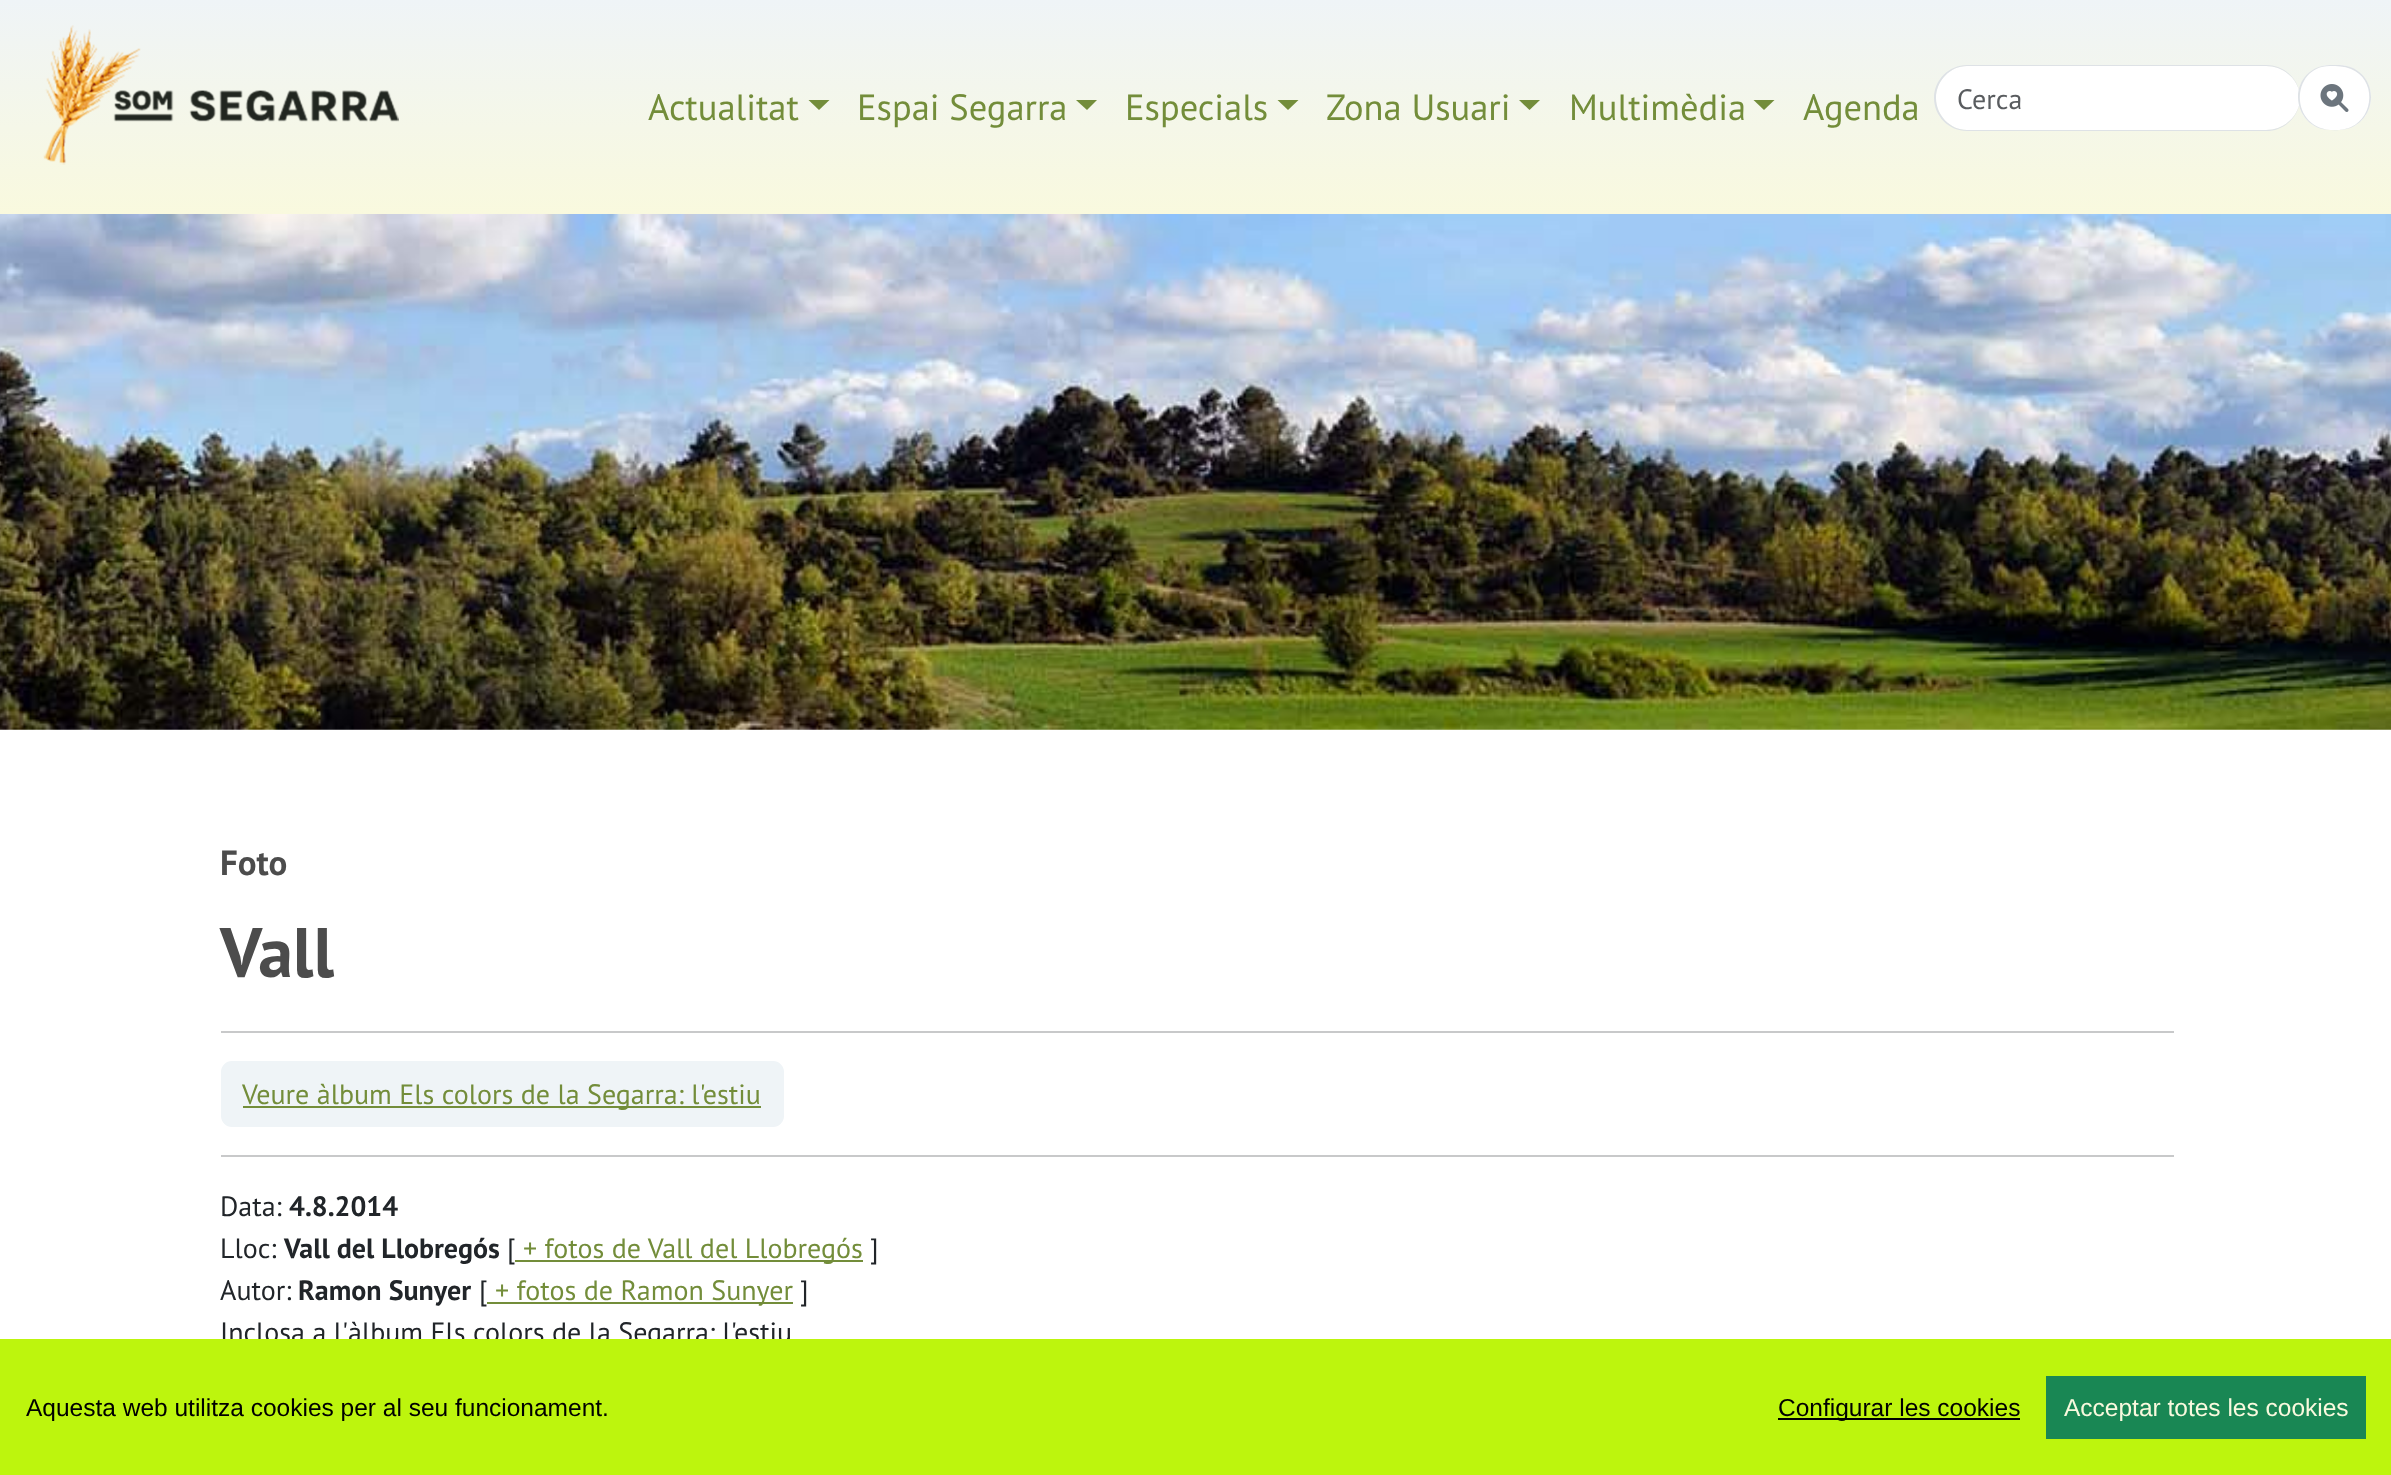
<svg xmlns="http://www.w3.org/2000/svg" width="2391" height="1475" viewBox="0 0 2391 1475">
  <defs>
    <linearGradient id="g1" gradientUnits="userSpaceOnUse" x1="1196" y1="0" x2="1196" y2="214"><stop offset="0" stop-color="#eff4f7"/><stop offset="1" stop-color="#f9f9de"/></linearGradient>
  </defs>
  <rect width="100%" height="100%" fill="#ffffff"/>
  <rect x="0" y="0" width="2391" height="214" fill="url(#g1)"/>
  <image x="43" y="25" width="356" height="140" href="img1.png"/>
  <text x="648" y="120" font-family="PT Sans" font-size="36.5" fill="#738d3a">Actualitat</text>
  <path d="M808.5 100H829.5L819 110Z" fill="#738d3a"/>
  <text x="857" y="120" font-family="PT Sans" font-size="36.5" fill="#738d3a">Espai Segarra</text>
  <path d="M1076 100H1097L1087 110Z" fill="#738d3a"/>
  <text x="1125" y="120" font-family="PT Sans" font-size="36.5" fill="#738d3a">Especials</text>
  <path d="M1277.5 100H1298.5L1288 110Z" fill="#738d3a"/>
  <text x="1326" y="120" font-family="PT Sans" font-size="36.5" fill="#738d3a">Zona Usuari</text>
  <path d="M1519 100H1540L1529.5 110Z" fill="#738d3a"/>
  <text x="1569" y="120" font-family="PT Sans" font-size="36.5" fill="#738d3a">Multimèdia</text>
  <path d="M1753.5 100H1774.5L1764 110Z" fill="#738d3a"/>
  <text x="1803" y="120" font-family="PT Sans" font-size="36.5" fill="#738d3a">Agenda</text>
  <path d="M1967 66H2266C2285 66 2300 81 2300 98C2300 115 2285 130 2266 130H1967C1950 130 1936 115 1936 98C1936 81 1950 66 1967 66Z" fill="#ffffff"/>
  <path d="M1967 65H2266C2285 65 2300 80 2300 98C2300 116 2285 131 2266 131H1967C1949 131 1934 116 1934 98C1934 80 1949 65 1967 65ZM1967 66H2266C2285 66 2300 81 2300 98C2300 115 2285 130 2266 130H1967C1950 130 1936 115 1936 98C1936 81 1950 66 1967 66Z" fill="#dee2e6" fill-rule="evenodd"/>
  <text x="1957" y="109" font-family="PT Sans" font-size="28" fill="#595c5f">Cerca</text>
  <rect x="2298" y="65" width="73" height="65" rx="32.5" fill="#ffffff"/>
  <path d="M2330 65H2339C2357 65 2371 79 2371 97C2371 115 2357 130 2339 130H2330C2312 130 2298 115 2298 97C2298 79 2312 65 2330 65ZM2330 66C2337 66 2344 66 2351 69C2376 79 2375 116 2351 127C2346 129 2344 129 2339 130C2288 134 2289 66 2330 66Z" fill="#dee2e6" fill-rule="evenodd"/>
  <image x="2320" y="84" width="29" height="28" href="img2.png"/>
  <image x="0" y="214" width="2391" height="516" href="img3.png"/>
  <text x="220" y="875" font-family="PT Sans" font-size="35" font-weight="bold" fill="#4c4c4c">Foto</text>
  <text x="220" y="977" font-family="PT Sans" font-size="70" font-weight="bold" fill="#4c4c4c">Vall</text>
  <rect x="221" y="1031" width="1953" height="2" fill="#c8c9ca"/>
  <rect x="222" y="1062" width="561" height="64" rx="10" fill="#eff4f7" stroke="#eff4f7" stroke-width="2"/>
  <rect x="243" y="1106" width="518" height="2" fill="#738d3a"/>
  <text x="242" y="1104" font-family="PT Sans" font-size="28" fill="#738d3a">Veure àlbum Els colors de la Segarra: l'estiu</text>
  <rect x="221" y="1155" width="1953" height="2" fill="#c8c9ca"/>
  <text x="220" y="1216" font-family="PT Sans" font-size="28" fill="#212529">Data:</text>
  <text x="289" y="1216" font-family="PT Sans" font-size="28" font-weight="bold" fill="#212529">4.8.2014</text>
  <text x="220" y="1258" font-family="PT Sans" font-size="28" fill="#212529">Lloc:</text>
  <text x="284" y="1258" font-family="PT Sans" font-size="28" font-weight="bold" fill="#212529">Vall del Llobregós</text>
  <text x="507" y="1258" font-family="PT Sans" font-size="28" fill="#212529">[</text>
  <rect x="515" y="1260" width="348" height="2" fill="#738d3a"/>
  <text x="523" y="1258" font-family="PT Sans" font-size="28" fill="#738d3a">+ fotos de Vall del Llobregós</text>
  <text x="870" y="1258" font-family="PT Sans" font-size="28" fill="#212529">]</text>
  <text x="220" y="1300" font-family="PT Sans" font-size="28" fill="#212529">Autor:</text>
  <text x="298" y="1300" font-family="PT Sans" font-size="28" font-weight="bold" fill="#212529">Ramon Sunyer</text>
  <text x="479" y="1300" font-family="PT Sans" font-size="28" fill="#212529">[</text>
  <rect x="487" y="1302" width="306" height="2" fill="#738d3a"/>
  <text x="495" y="1300" font-family="PT Sans" font-size="28" fill="#738d3a">+ fotos de Ramon Sunyer</text>
  <text x="800" y="1300" font-family="PT Sans" font-size="28" fill="#212529">]</text>
  <text x="220" y="1342" font-family="PT Sans" font-size="28" fill="#212529">Inclosa a l'àlbum Els colors de la Segarra: l'estiu</text>
  <rect x="0" y="1339" width="2391" height="136" fill="#bdf50d"/>
  <text x="26" y="1416" font-family="Liberation Sans" font-size="24.5" fill="#000000">Aquesta web utilitza cookies per al seu funcionament.</text>
  <rect x="1778" y="1418" width="242" height="2" fill="#000000"/>
  <text x="1778" y="1416" font-family="Liberation Sans" font-size="24.5" fill="#000000">Configurar les cookies</text>
  <rect x="2046" y="1376" width="320" height="63" fill="#198754"/>
  <text x="2064" y="1416" font-family="Liberation Sans" font-size="24.5" fill="#f9f9de">Acceptar totes les cookies</text>
</svg>
